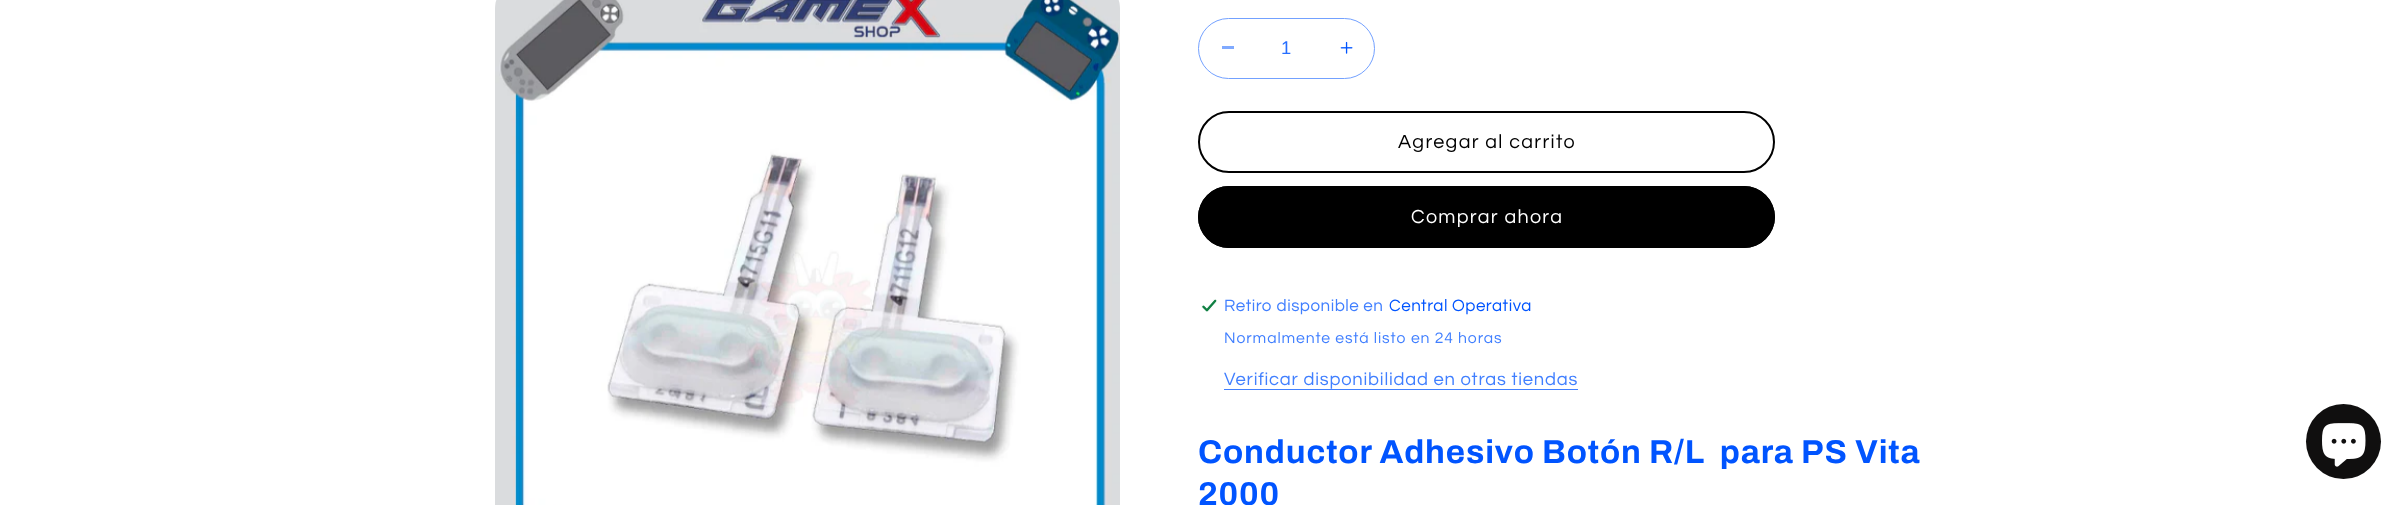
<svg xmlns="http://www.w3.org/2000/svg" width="2408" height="505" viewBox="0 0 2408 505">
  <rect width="100%" height="100%" fill="#ffffff"/>
  <image x="495" y="0" width="625" height="505" href="img1.png"/>
  <rect x="1222" y="46" width="12" height="3" fill="#80aaff"/>
  <image x="1340" y="41" width="13" height="13" href="img2.png"/>
  <rect x="1198.5" y="18.5" width="176" height="60" rx="30" fill="none" stroke="#73a1ff"/>
  <text x="1281" y="54" font-family="Liberation Sans" font-size="18.4" fill="#266eff">1</text>
  <rect x="1199" y="112" width="575" height="60" rx="30" fill="none" stroke="#000000" stroke-width="2"/>
  <text x="1398" y="148" font-family="Questrial" font-size="19.75" letter-spacing="1.3" fill="#000000">Agregar al carrito</text>
  <rect x="1198" y="186" width="577" height="62" rx="31" fill="#000000"/>
  <rect x="1198.5" y="186.5" width="576" height="61" rx="30.5" fill="none" stroke="#000000"/>
  <text x="1411" y="223" font-family="Questrial" font-size="19.75" letter-spacing="1.3" fill="#ffffff">Comprar ahora</text>
  <image x="1201" y="299" width="16" height="13" href="img3.png"/>
  <text x="1224" y="311" font-family="Questrial" font-size="17" letter-spacing="0.5" fill="#407fff">Retiro disponible en</text>
  <text x="1389" y="311" font-family="Questrial" font-size="17" letter-spacing="0.5" fill="#0054ff">Central Operativa</text>
  <text x="1224" y="343" font-family="Questrial" font-size="15.75" letter-spacing="0.9" fill="#407fff">Normalmente está listo en 24 horas</text>
  <text x="1224" y="385" font-family="Questrial" font-size="18.4" letter-spacing="0.8" fill="#407fff">Verificar disponibilidad en otras tiendas</text>
  <rect x="1224" y="389" width="354" height="1" fill="#407fff"/>
  <text x="1198" y="463" font-family="Archivo" font-size="33" font-weight="bold" letter-spacing="0.85" fill="#0054ff" xml:space="preserve">Conductor Adhesivo Botón R/L  para PS Vita</text>
  <text x="1198" y="505" font-family="Archivo" font-size="33" font-weight="bold" letter-spacing="0.85" fill="#0054ff">2000</text>
  <circle cx="2343.5" cy="441.5" r="37.5" fill="#100f0f"/>
  <image x="2322" y="423" width="44" height="44" href="img4.png"/>
</svg>
